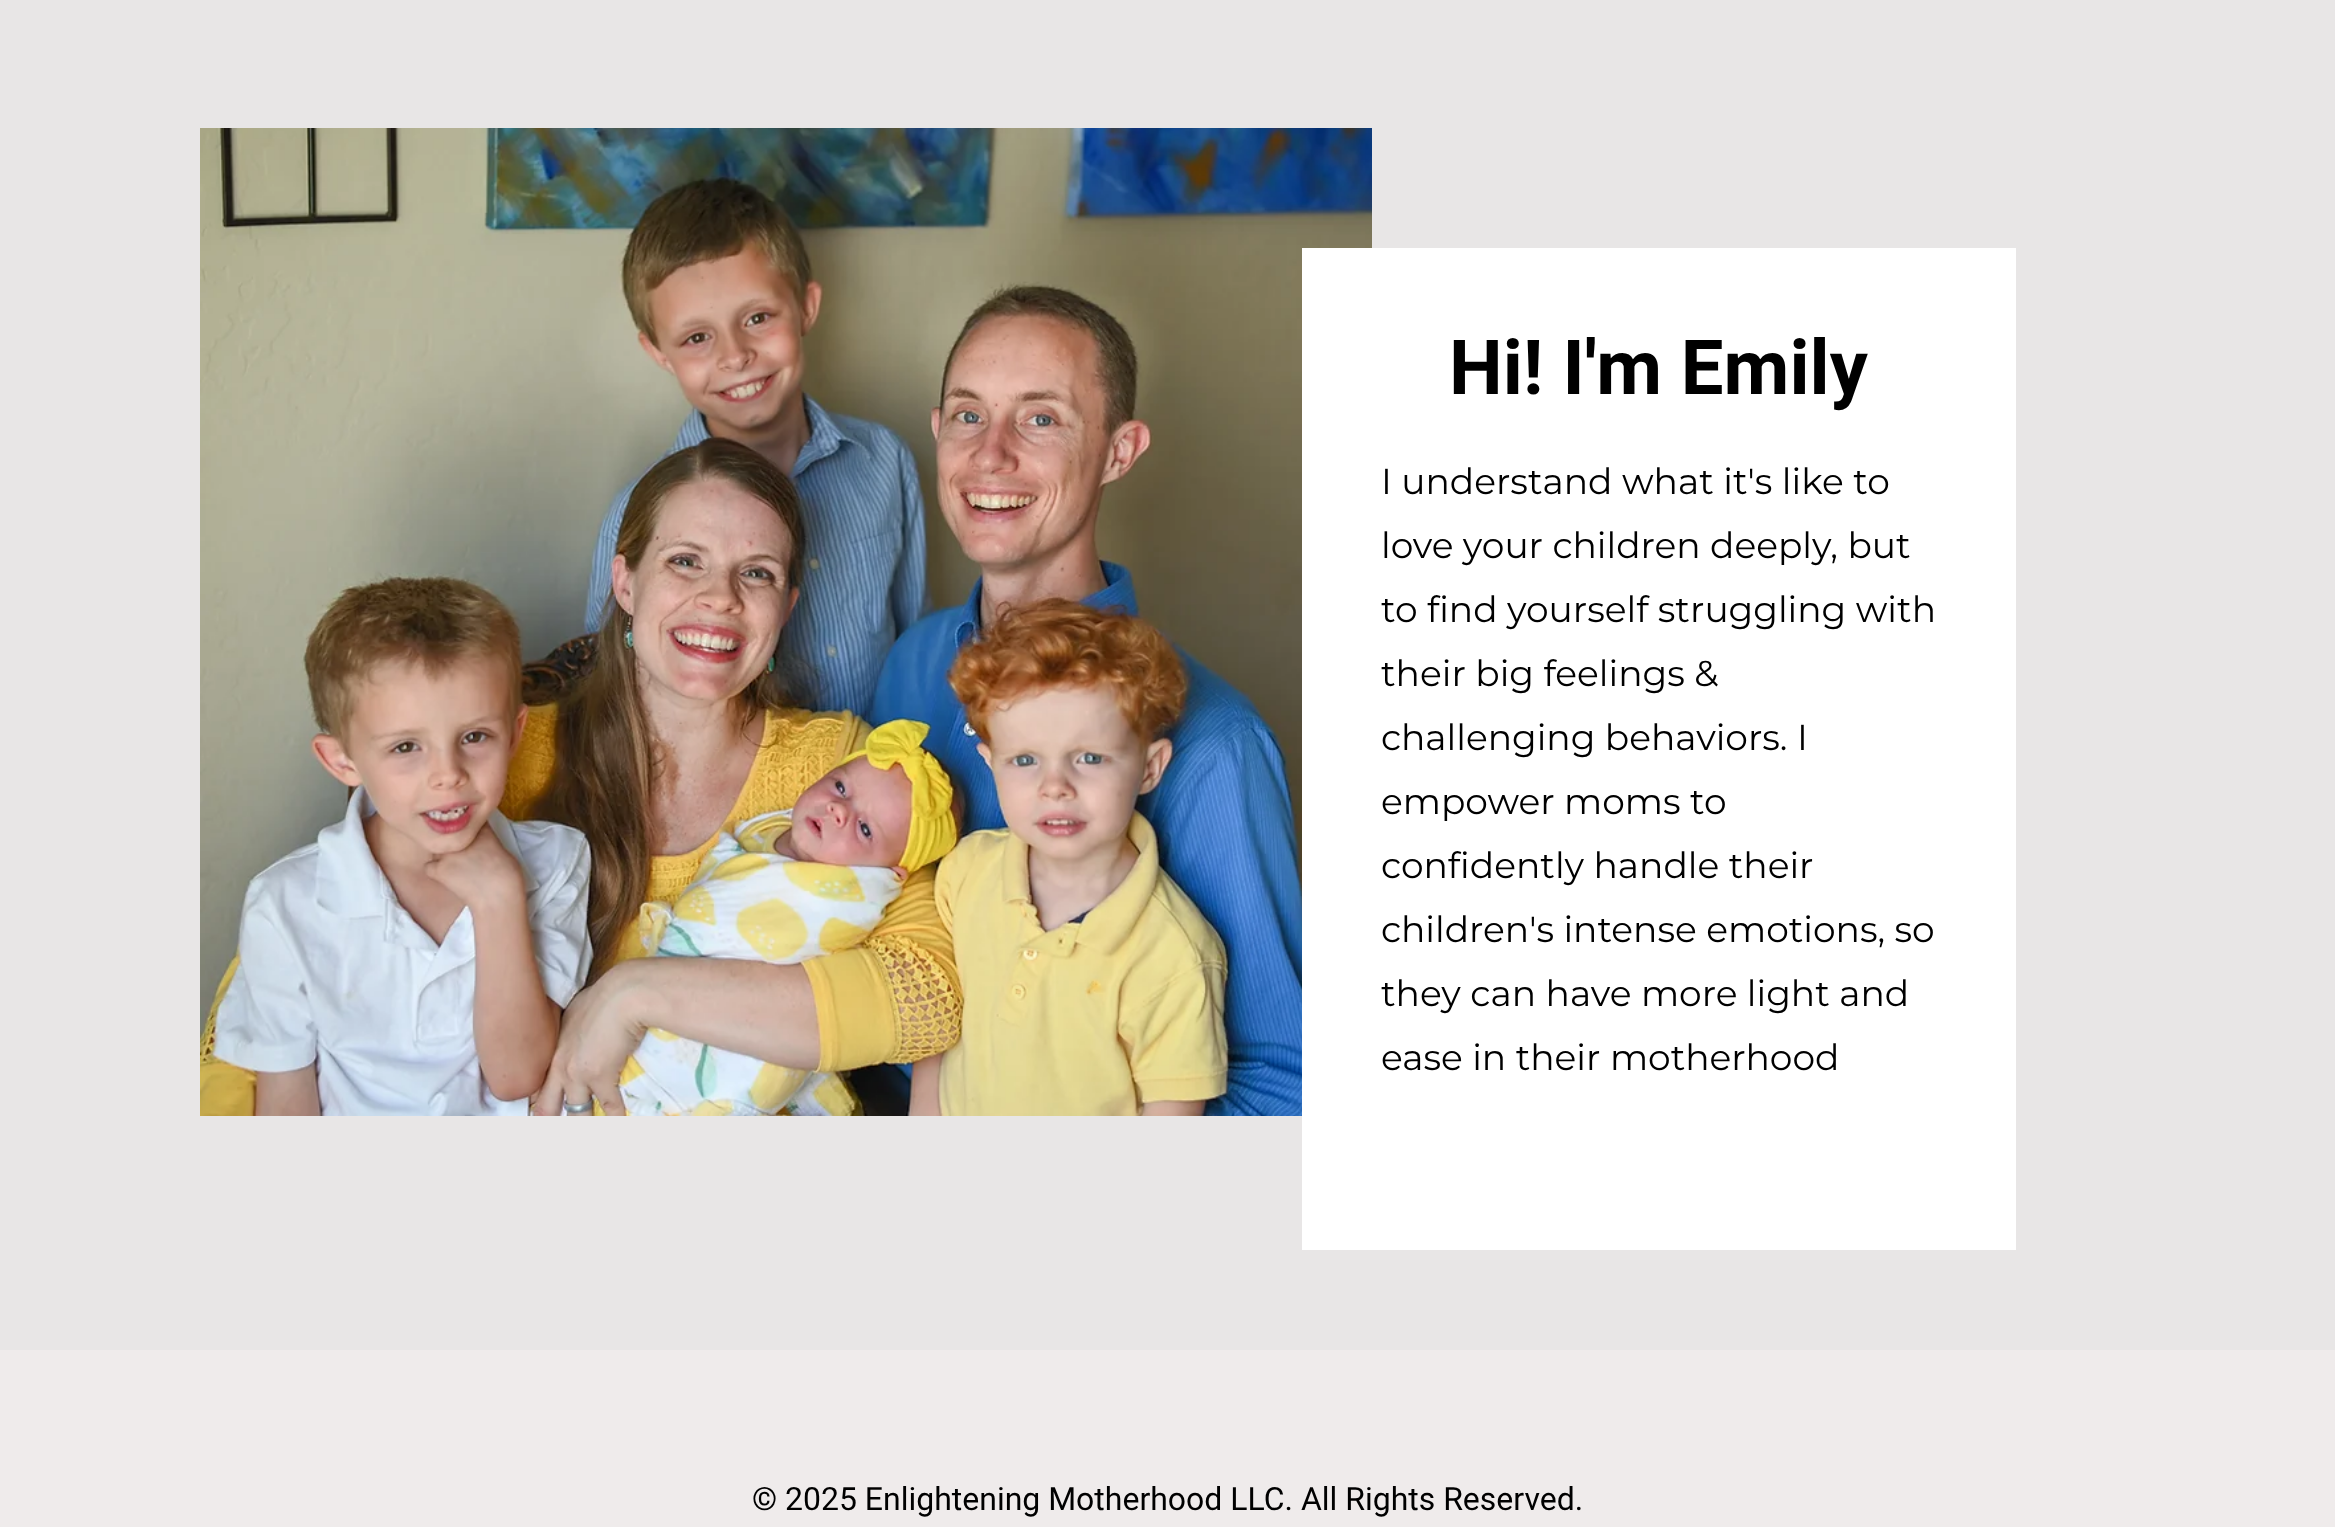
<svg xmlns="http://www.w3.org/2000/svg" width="2335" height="1527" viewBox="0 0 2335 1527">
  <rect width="100%" height="100%" fill="#e8e6e6"/>
  <image x="200" y="128" width="1172" height="988" href="img1.png"/>
  <rect x="1302" y="248" width="714" height="1002" fill="#ffffff"/>
  <text x="1449" y="394" font-family="Roboto" font-size="76" font-weight="bold" fill="#000000">Hi! I'm Emily</text>
  <text x="1381" y="494" font-family="Montserrat" font-size="36" fill="#000000">I understand what it's like to</text>
  <text x="1381" y="558" font-family="Montserrat" font-size="36" fill="#000000">love your children deeply, but</text>
  <text x="1381" y="622" font-family="Montserrat" font-size="36" fill="#000000">to find yourself struggling with</text>
  <text x="1381" y="686" font-family="Montserrat" font-size="36" fill="#000000">their big feelings &amp;</text>
  <text x="1381" y="750" font-family="Montserrat" font-size="36" fill="#000000">challenging behaviors. I</text>
  <text x="1381" y="814" font-family="Montserrat" font-size="36" fill="#000000">empower moms to</text>
  <text x="1381" y="878" font-family="Montserrat" font-size="36" fill="#000000">confidently handle their</text>
  <text x="1381" y="942" font-family="Montserrat" font-size="36" fill="#000000">children's intense emotions, so</text>
  <text x="1381" y="1006" font-family="Montserrat" font-size="36" fill="#000000">they can have more light and</text>
  <text x="1381" y="1070" font-family="Montserrat" font-size="36" fill="#000000">ease in their motherhood</text>
  <rect x="0" y="1350" width="2335" height="177" fill="#efebeb"/>
  <text x="752" y="1510" font-family="Roboto" font-size="32" fill="#000000">© 2025 Enlightening Motherhood LLC. All Rights Reserved.</text>
</svg>
